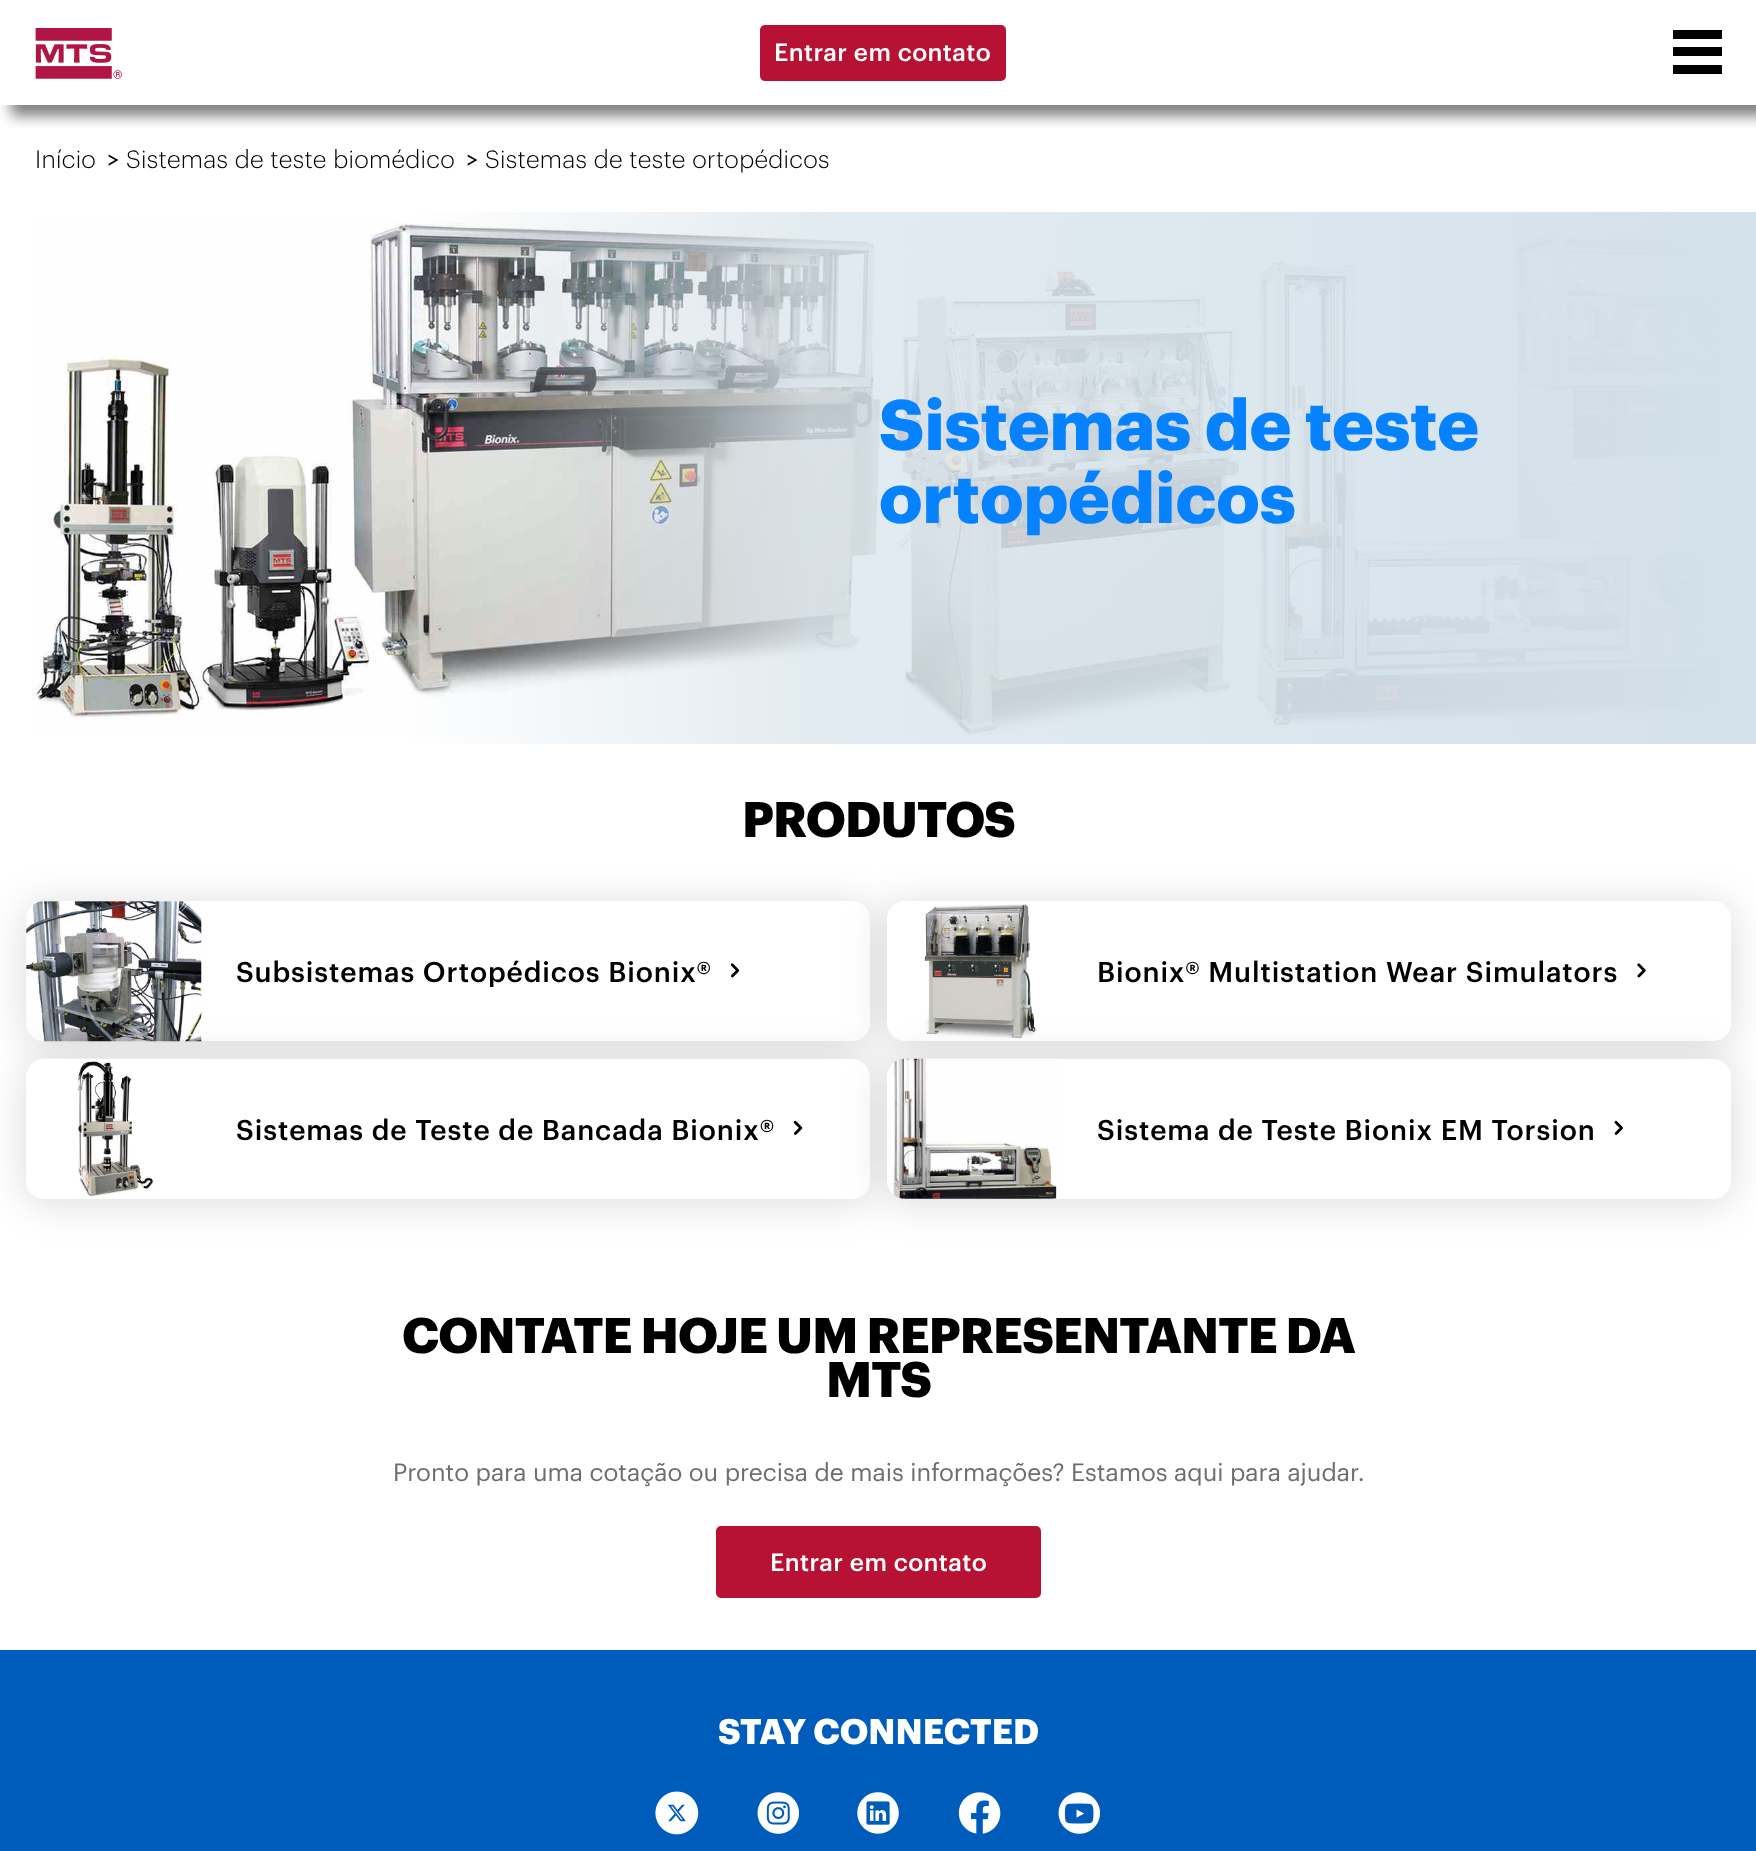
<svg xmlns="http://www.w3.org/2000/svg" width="1756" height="1851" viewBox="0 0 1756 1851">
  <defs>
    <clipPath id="clip1"><rect x="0" y="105" width="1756" height="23"/></clipPath>
    <filter id="blur1" x="-50%" y="-200%" width="200%" height="500%"><feGaussianBlur stdDeviation="7"/></filter>
    <linearGradient id="g1" gradientUnits="userSpaceOnUse" x1="0" y1="478" x2="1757" y2="478"><stop offset="0" stop-color="#ffffff" stop-opacity="0"/><stop offset="0.23" stop-color="#dee8ef" stop-opacity="0"/><stop offset="0.46" stop-color="#dee8ef" stop-opacity="0.85"/><stop offset="1" stop-color="#d3e1ea"/></linearGradient>
    <filter id="blur2" x="-50%" y="-200%" width="200%" height="500%"><feGaussianBlur stdDeviation="21"/></filter>
  </defs>
  <rect width="100%" height="100%" fill="#ffffff"/>
  <g clip-path="url(#clip1)">
    <rect x="11" y="11" width="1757" height="105" fill="#000000" fill-opacity="0.5" filter="url(#blur1)"/>
  </g>
  <image x="35" y="28" width="87" height="51" href="img1.png"/>
  <rect x="761" y="26" width="244" height="54" rx="4" fill="#b71234" stroke="#b71234" stroke-width="2"/>
  <text x="774" y="61" font-family="Graphik" font-size="24.5" font-weight="500" letter-spacing="0.4" fill="#ffffff">Entrar em contato</text>
  <rect x="1673" y="30" width="49" height="9" fill="#000000"/>
  <rect x="1673" y="47" width="49" height="9" fill="#000000"/>
  <rect x="1673" y="65" width="49" height="9" fill="#000000"/>
  <text x="35" y="168" font-family="Graphik" font-size="24.5" font-weight="300" letter-spacing="0.3" fill="#000000">Início</text>
  <text x="107" y="168" font-family="Graphik" font-size="24.5" fill="#000000">&gt;</text>
  <text x="126" y="168" font-family="Graphik" font-size="24.5" font-weight="300" letter-spacing="0.3" fill="#000000">Sistemas de teste biomédico</text>
  <text x="466" y="168" font-family="Graphik" font-size="24.5" fill="#000000">&gt;</text>
  <text x="485" y="168" font-family="Graphik" font-size="24.5" font-weight="300" letter-spacing="0.3" fill="#000000">Sistemas de teste ortopédicos</text>
  <image x="32" y="222" width="1688" height="515" href="img2.png"/>
  <rect x="414" y="212" width="1342" height="532" fill="url(#g1)"/>
  <text x="879" y="450" font-family="Graphik" font-size="70" font-weight="bold" letter-spacing="-0.1" fill="#0682ff">Sistemas de teste</text>
  <text x="879" y="523" font-family="Graphik" font-size="70" font-weight="bold" letter-spacing="-0.1" fill="#0682ff">ortopédicos</text>
  <text x="742" y="837" font-family="Graphik" font-size="49" font-weight="bold" letter-spacing="-0.9" fill="#000000">PRODUTOS</text>
  <rect x="26" y="905" width="844" height="140" rx="18" fill="#000000" fill-opacity="0.15" filter="url(#blur2)"/>
  <rect x="26" y="901" width="844" height="140" rx="18" fill="#ffffff"/>
  <image x="26" y="901" width="176" height="141" href="img3.png"/>
  <text x="236" y="982" font-family="Graphik" font-size="28" font-weight="500" letter-spacing="0.9" fill="#000000">Subsistemas Ortopédicos Bionix®</text>
  <image x="730" y="963" width="10" height="15" href="img4.png"/>
  <rect x="887" y="905" width="844" height="140" rx="18" fill="#000000" fill-opacity="0.15" filter="url(#blur2)"/>
  <rect x="887" y="901" width="844" height="140" rx="18" fill="#ffffff"/>
  <image x="924" y="904" width="113" height="135" href="img5.png"/>
  <text x="1097" y="982" font-family="Graphik" font-size="28" font-weight="500" letter-spacing="0.9" fill="#000000">Bionix® Multistation Wear Simulators</text>
  <image x="1637" y="963" width="9" height="15" href="img6.png"/>
  <rect x="26" y="1062" width="844" height="140" rx="18" fill="#000000" fill-opacity="0.15" filter="url(#blur2)"/>
  <rect x="26" y="1059" width="844" height="140" rx="18" fill="#ffffff"/>
  <image x="34" y="1058" width="167" height="139" href="img7.png"/>
  <text x="236" y="1140" font-family="Graphik" font-size="28" font-weight="500" letter-spacing="0.9" fill="#000000">Sistemas de Teste de Bancada Bionix®</text>
  <image x="793" y="1120" width="10" height="15" href="img8.png"/>
  <rect x="887" y="1062" width="844" height="140" rx="18" fill="#000000" fill-opacity="0.15" filter="url(#blur2)"/>
  <rect x="887" y="1059" width="844" height="140" rx="18" fill="#ffffff"/>
  <image x="893" y="1058" width="169" height="141" href="img9.png"/>
  <text x="1097" y="1140" font-family="Graphik" font-size="28" font-weight="500" letter-spacing="0.9" fill="#000000">Sistema de Teste Bionix EM Torsion</text>
  <image x="1614" y="1120" width="9" height="15" href="img10.png"/>
  <text x="402" y="1353" font-family="Graphik" font-size="49" font-weight="bold" letter-spacing="-0.9" fill="#000000">CONTATE HOJE UM REPRESENTANTE DA</text>
  <text x="826" y="1397" font-family="Graphik" font-size="49" font-weight="bold" letter-spacing="-0.9" fill="#000000">MTS</text>
  <text x="393" y="1481" font-family="Graphik" font-size="24.5" fill="#6c6f70">Pronto para uma cotação ou precisa de mais informações? Estamos aqui para ajudar.</text>
  <rect x="717" y="1527" width="323" height="70" rx="4" fill="#b71234" stroke="#b71234" stroke-width="2"/>
  <text x="770" y="1571" font-family="Graphik" font-size="24.5" font-weight="500" letter-spacing="0.4" fill="#ffffff">Entrar em contato</text>
  <rect x="0" y="1650" width="1756" height="201" fill="#005cba"/>
  <text x="718" y="1744" font-family="Graphik" font-size="35" font-weight="bold" fill="#ffffff">STAY CONNECTED</text>
  <image x="655" y="1791" width="44" height="44" href="img11.png"/>
  <image x="757" y="1792" width="42" height="42" href="img12.png"/>
  <image x="857" y="1792" width="42" height="42" href="img13.png"/>
  <image x="958" y="1792" width="43" height="42" href="img14.png"/>
  <image x="1058" y="1792" width="42" height="42" href="img15.png"/>
</svg>
